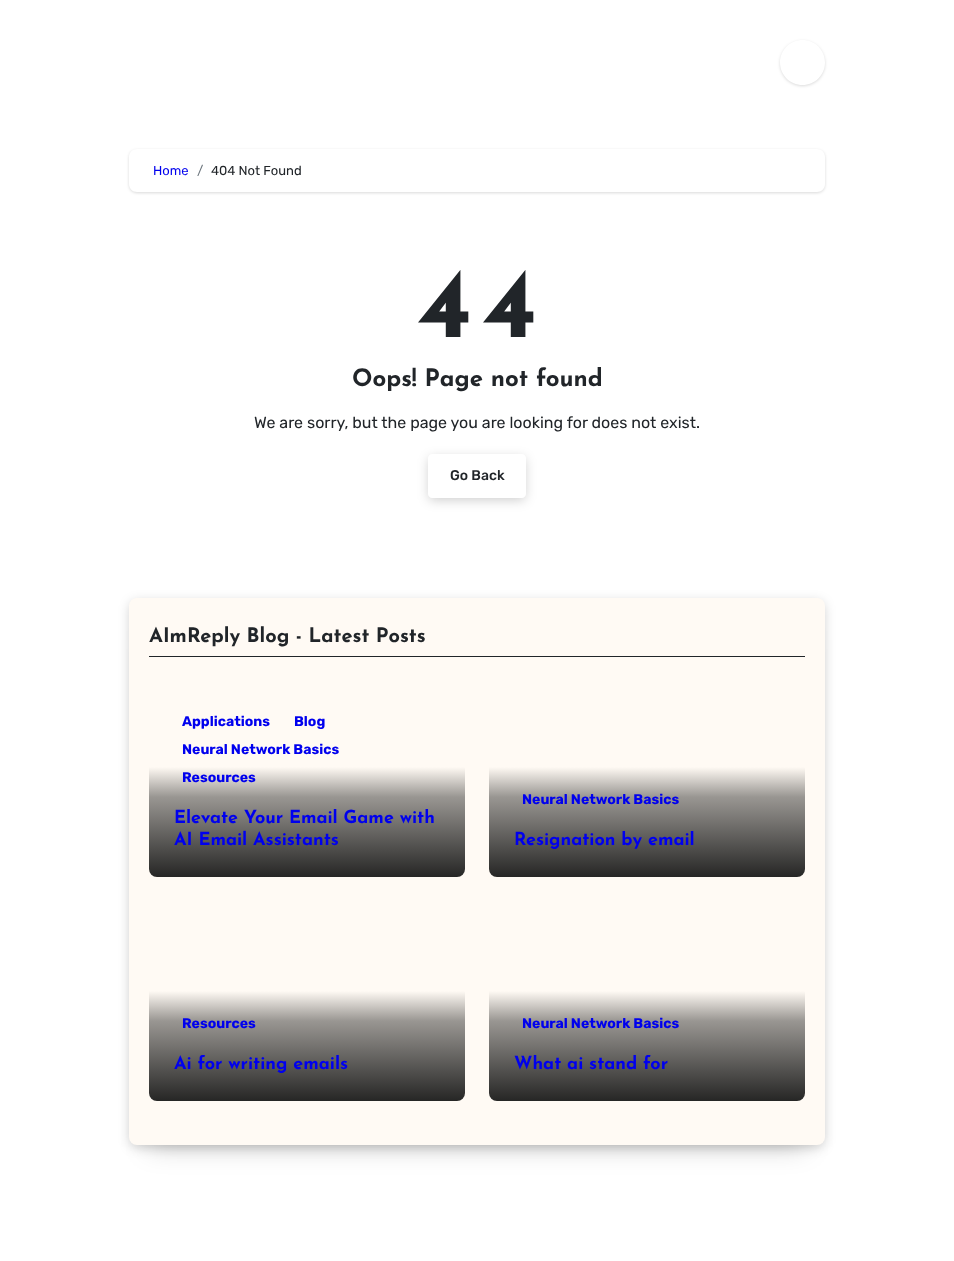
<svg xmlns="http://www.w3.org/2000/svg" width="954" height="1261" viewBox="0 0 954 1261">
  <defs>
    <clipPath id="clip1"><path d="M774 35H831V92H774ZM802.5 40C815 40 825 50 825 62.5C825 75 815 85 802.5 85C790 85 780 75 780 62.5C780 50 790 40 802.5 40Z" clip-rule="evenodd"/></clipPath>
    <filter id="blur1" x="-50%" y="-200%" width="200%" height="500%"><feGaussianBlur stdDeviation="1.5"/></filter>
    <clipPath id="clip2"><path d="M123 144H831V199H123ZM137 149H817C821.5 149 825 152.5 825 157V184C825 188.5 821.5 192 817 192H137C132.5 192 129 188.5 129 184V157C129 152.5 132.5 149 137 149Z" clip-rule="evenodd"/></clipPath>
    <clipPath id="clip3"><path d="M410 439H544V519H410ZM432 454H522C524 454 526 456 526 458V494C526 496 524 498 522 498H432C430 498 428 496 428 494V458C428 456 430 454 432 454Z" clip-rule="evenodd"/></clipPath>
    <filter id="blur2" x="-50%" y="-200%" width="200%" height="500%"><feGaussianBlur stdDeviation="6"/></filter>
    <filter id="blur3" x="-50%" y="-200%" width="200%" height="500%"><feGaussianBlur stdDeviation="13.5"/></filter>
    <linearGradient id="g1" gradientUnits="userSpaceOnUse" x1="307" y1="677" x2="307" y2="877"><stop offset="0" stop-color="#fffaf4"/><stop offset="0.45" stop-color="#fffaf4"/><stop offset="0.6" stop-color="#999692"/><stop offset="1" stop-color="#262625"/></linearGradient>
    <clipPath id="clip4"><rect x="174" y="809" width="266" height="43"/></clipPath>
    <linearGradient id="g2" gradientUnits="userSpaceOnUse" x1="647" y1="677" x2="647" y2="877"><stop offset="0" stop-color="#fffaf4"/><stop offset="0.45" stop-color="#fffaf4"/><stop offset="0.6" stop-color="#999692"/><stop offset="1" stop-color="#262625"/></linearGradient>
    <clipPath id="clip5"><rect x="514" y="831" width="266" height="21"/></clipPath>
    <linearGradient id="g3" gradientUnits="userSpaceOnUse" x1="307" y1="901" x2="307" y2="1101"><stop offset="0" stop-color="#fffaf4"/><stop offset="0.45" stop-color="#fffaf4"/><stop offset="0.6" stop-color="#999692"/><stop offset="1" stop-color="#262625"/></linearGradient>
    <clipPath id="clip6"><rect x="174" y="1055" width="266" height="21"/></clipPath>
    <linearGradient id="g4" gradientUnits="userSpaceOnUse" x1="647" y1="901" x2="647" y2="1101"><stop offset="0" stop-color="#fffaf4"/><stop offset="0.45" stop-color="#fffaf4"/><stop offset="0.6" stop-color="#999692"/><stop offset="1" stop-color="#262625"/></linearGradient>
    <clipPath id="clip7"><rect x="514" y="1055" width="266" height="21"/></clipPath>
  </defs>
  <rect width="100%" height="100%" fill="#ffffff"/>
  <g clip-path="url(#clip1)">
    <rect x="780" y="41" width="45" height="45" rx="22.5" fill="#000000" fill-opacity="0.15" filter="url(#blur1)"/>
  </g>
  <g clip-path="url(#clip2)">
    <rect x="129" y="150" width="696" height="43" rx="8" fill="#000000" fill-opacity="0.15" filter="url(#blur1)"/>
  </g>
  <text x="153" y="175" font-family="Rubik" font-size="13" font-weight="300" fill="#0000ee">Home</text>
  <text x="197" y="175" font-family="Rubik" font-size="13" font-weight="300" fill="#6c757d">/</text>
  <text x="211" y="175" font-family="Rubik" font-size="13" font-weight="300" fill="#212529">404 Not Found</text>
  <text x="417" y="337" font-family="Josefin Sans" font-size="100" font-weight="bold" fill="#212529">4</text>
  <text x="482" y="337" font-family="Josefin Sans" font-size="100" font-weight="bold" fill="#212529">4</text>
  <text x="352" y="386" font-family="Josefin Sans" font-size="24" font-weight="bold" fill="#212529">Oops! Page not found</text>
  <text x="254" y="428" font-family="Rubik" font-size="16" font-weight="300" fill="#212529">We are sorry, but the page you are looking for does not exist.</text>
  <g clip-path="url(#clip3)">
    <rect x="429" y="458" width="96" height="42" rx="3" fill="#070a19" fill-opacity="0.2" filter="url(#blur2)"/>
  </g>
  <text x="450" y="480" font-family="Rubik" font-size="14" font-weight="500" fill="#212529">Go Back</text>
  <rect x="149" y="640" width="656" height="507" fill="#070a19" fill-opacity="0.2" filter="url(#blur3)"/>
  <rect x="130" y="602" width="694" height="545" rx="7" fill="#070a19" fill-opacity="0.2" filter="url(#blur2)"/>
  <rect x="129" y="598" width="696" height="547" rx="8" fill="#fffaf4"/>
  <rect x="149" y="656" width="656" height="1" fill="#212529"/>
  <text x="149" y="642" font-family="Josefin Sans" font-size="20" font-weight="bold" fill="#212529">AImReply Blog - Latest Posts</text>
  <rect x="149" y="677" width="316" height="200" rx="8" fill="url(#g1)"/>
  <text x="182" y="726" font-family="Rubik" font-size="14" font-weight="bold" fill="#0000ee">Applications</text>
  <text x="294" y="726" font-family="Rubik" font-size="14" font-weight="bold" fill="#0000ee">Blog</text>
  <text x="182" y="754" font-family="Rubik" font-size="14" font-weight="bold" fill="#0000ee">Neural Network Basics</text>
  <text x="182" y="782" font-family="Rubik" font-size="14" font-weight="bold" fill="#0000ee">Resources</text>
  <g clip-path="url(#clip4)">
    <text x="174" y="823" font-family="Josefin Sans" font-size="18" font-weight="bold" fill="#0000ee">Elevate Your Email Game with</text>
  </g>
  <text x="174" y="845" font-family="Josefin Sans" font-size="18" font-weight="bold" fill="#0000ee">AI Email Assistants</text>
  <rect x="489" y="677" width="316" height="200" rx="8" fill="url(#g2)"/>
  <text x="522" y="804" font-family="Rubik" font-size="14" font-weight="bold" fill="#0000ee">Neural Network Basics</text>
  <g clip-path="url(#clip5)">
    <text x="514" y="845" font-family="Josefin Sans" font-size="18" font-weight="bold" fill="#0000ee">Resignation by email</text>
  </g>
  <rect x="149" y="901" width="316" height="200" rx="8" fill="url(#g3)"/>
  <text x="182" y="1028" font-family="Rubik" font-size="14" font-weight="bold" fill="#0000ee">Resources</text>
  <g clip-path="url(#clip6)">
    <text x="174" y="1069" font-family="Josefin Sans" font-size="18" font-weight="bold" fill="#0000ee">Ai for writing emails</text>
  </g>
  <rect x="489" y="901" width="316" height="200" rx="8" fill="url(#g4)"/>
  <text x="522" y="1028" font-family="Rubik" font-size="14" font-weight="bold" fill="#0000ee">Neural Network Basics</text>
  <g clip-path="url(#clip7)">
    <text x="514" y="1069" font-family="Josefin Sans" font-size="18" font-weight="bold" fill="#0000ee">What ai stand for</text>
  </g>
</svg>
